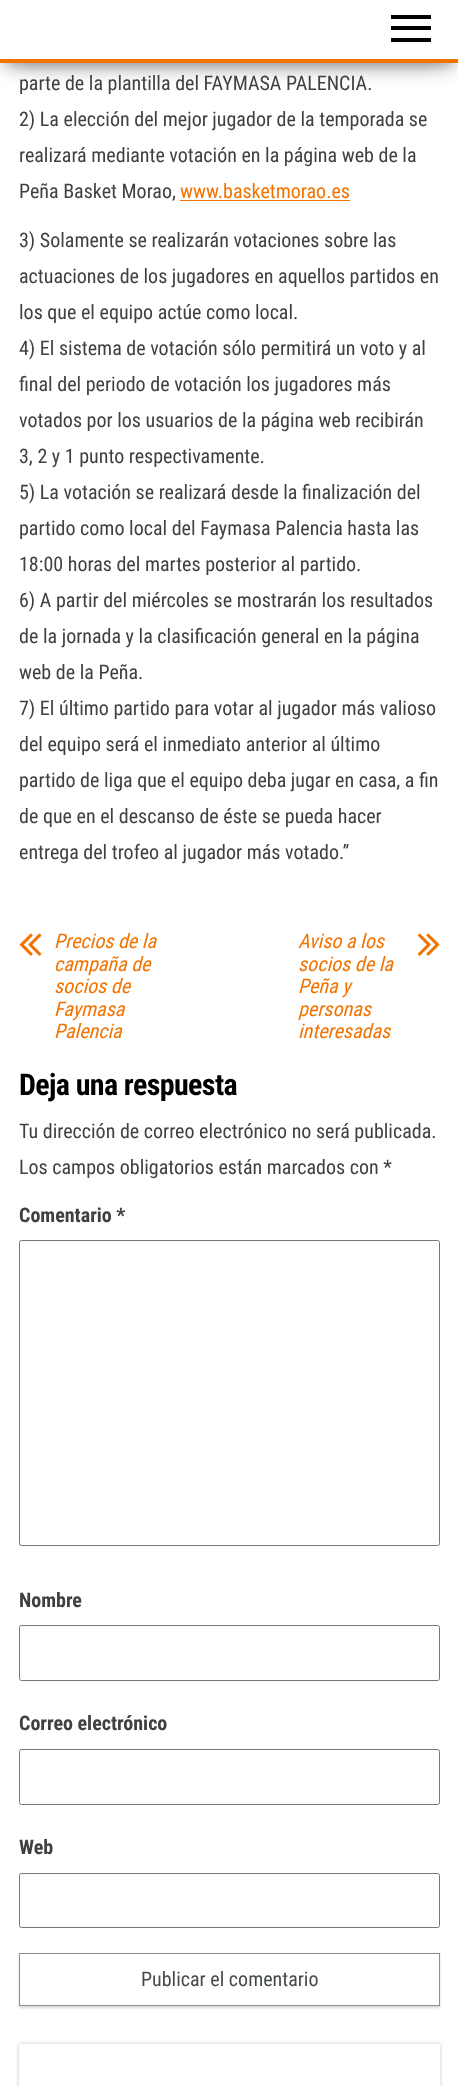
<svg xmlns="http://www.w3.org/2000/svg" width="458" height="2086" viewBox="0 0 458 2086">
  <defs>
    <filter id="blur1" x="-50%" y="-200%" width="200%" height="500%"><feGaussianBlur stdDeviation="6"/></filter>
    <filter id="blur2" x="-50%" y="-200%" width="200%" height="500%"><feGaussianBlur stdDeviation="12.5"/></filter>
    <clipPath id="clip1"><path d="M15 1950H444V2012H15ZM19 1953H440V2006H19Z" clip-rule="evenodd"/></clipPath>
    <filter id="blur3" x="-50%" y="-200%" width="200%" height="500%"><feGaussianBlur stdDeviation="1"/></filter>
    <clipPath id="clip2"><path d="M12 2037H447V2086H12ZM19 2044H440V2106H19Z" clip-rule="evenodd"/></clipPath>
    <filter id="blur4" x="-50%" y="-200%" width="200%" height="500%"><feGaussianBlur stdDeviation="2"/></filter>
  </defs>
  <rect width="100%" height="100%" fill="#ffffff"/>
  <rect x="6" y="16" width="447" height="50" fill="#000000" fill-opacity="0.2" filter="url(#blur1)"/>
  <rect x="0" y="4" width="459" height="62" fill="#000000" fill-opacity="0.12" filter="url(#blur2)"/>
  <rect x="15" y="28" width="429" height="32" fill="#000000" fill-opacity="0.42" filter="url(#blur2)"/>
  <rect x="0" y="0" width="458" height="59" fill="#ffffff"/>
  <rect x="0" y="59" width="458" height="4" fill="#f27300"/>
  <rect x="391" y="15" width="40" height="4" fill="#000000"/>
  <rect x="391" y="26" width="40" height="4" fill="#000000"/>
  <rect x="391" y="38" width="40" height="4" fill="#000000"/>
  <text x="19" y="90" font-family="Roboto Condensed" font-size="20" fill="#404040">parte de la plantilla del FAYMASA PALENCIA.</text>
  <text x="19" y="126" font-family="Roboto Condensed" font-size="20" fill="#404040">2) La elección del mejor jugador de la temporada se</text>
  <text x="19" y="162" font-family="Roboto Condensed" font-size="20" fill="#404040">realizará mediante votación en la página web de la</text>
  <text x="19" y="198" font-family="Roboto Condensed" font-size="20" fill="#404040">Peña Basket Morao,</text>
  <text x="180" y="198" font-family="Roboto Condensed" font-size="20" fill="#f27300">www.basketmorao.es</text>
  <rect x="180" y="200" width="170" height="1" fill="#f27300"/>
  <text x="19" y="247" font-family="Roboto Condensed" font-size="20" fill="#404040">3) Solamente se realizarán votaciones sobre las</text>
  <text x="19" y="283" font-family="Roboto Condensed" font-size="20" fill="#404040">actuaciones de los jugadores en aquellos partidos en</text>
  <text x="19" y="319" font-family="Roboto Condensed" font-size="20" fill="#404040">los que el equipo actúe como local.</text>
  <text x="19" y="355" font-family="Roboto Condensed" font-size="20" fill="#404040">4) El sistema de votación sólo permitirá un voto y al</text>
  <text x="19" y="391" font-family="Roboto Condensed" font-size="20" fill="#404040">final del periodo de votación los jugadores más</text>
  <text x="19" y="427" font-family="Roboto Condensed" font-size="20" fill="#404040">votados por los usuarios de la página web recibirán</text>
  <text x="19" y="463" font-family="Roboto Condensed" font-size="20" fill="#404040">3, 2 y 1 punto respectivamente.</text>
  <text x="19" y="499" font-family="Roboto Condensed" font-size="20" fill="#404040">5) La votación se realizará desde la finalización del</text>
  <text x="19" y="535" font-family="Roboto Condensed" font-size="20" fill="#404040">partido como local del Faymasa Palencia hasta las</text>
  <text x="19" y="571" font-family="Roboto Condensed" font-size="20" fill="#404040">18:00 horas del martes posterior al partido.</text>
  <text x="19" y="607" font-family="Roboto Condensed" font-size="20" fill="#404040">6) A partir del miércoles se mostrarán los resultados</text>
  <text x="19" y="643" font-family="Roboto Condensed" font-size="20" fill="#404040">de la jornada y la clasificación general en la página</text>
  <text x="19" y="679" font-family="Roboto Condensed" font-size="20" fill="#404040">web de la Peña.</text>
  <text x="19" y="715" font-family="Roboto Condensed" font-size="20" fill="#404040">7) El último partido para votar al jugador más valioso</text>
  <text x="19" y="751" font-family="Roboto Condensed" font-size="20" fill="#404040">del equipo será el inmediato anterior al último</text>
  <text x="19" y="787" font-family="Roboto Condensed" font-size="20" fill="#404040">partido de liga que el equipo deba jugar en casa, a fin</text>
  <text x="19" y="823" font-family="Roboto Condensed" font-size="20" fill="#404040">de que en el descanso de éste se pueda hacer</text>
  <text x="19" y="859" font-family="Roboto Condensed" font-size="20" fill="#404040">entrega del trofeo al jugador más votado.”</text>
  <image x="19" y="933" width="23" height="23" href="img1.png"/>
  <text x="54" y="948" font-family="Roboto Condensed" font-size="20" font-style="italic" fill="#f27300">Precios de la</text>
  <text x="54" y="971" font-family="Roboto Condensed" font-size="20" font-style="italic" fill="#f27300">campaña de</text>
  <text x="54" y="993" font-family="Roboto Condensed" font-size="20" font-style="italic" fill="#f27300">socios de</text>
  <text x="54" y="1016" font-family="Roboto Condensed" font-size="20" font-style="italic" fill="#f27300">Faymasa</text>
  <text x="54" y="1038" font-family="Roboto Condensed" font-size="20" font-style="italic" fill="#f27300">Palencia</text>
  <text x="298" y="948" font-family="Roboto Condensed" font-size="20" font-style="italic" fill="#f27300">Aviso a los</text>
  <text x="298" y="971" font-family="Roboto Condensed" font-size="20" font-style="italic" fill="#f27300">socios de la</text>
  <text x="298" y="993" font-family="Roboto Condensed" font-size="20" font-style="italic" fill="#f27300">Peña y</text>
  <text x="298" y="1016" font-family="Roboto Condensed" font-size="20" font-style="italic" fill="#f27300">personas</text>
  <text x="298" y="1038" font-family="Roboto Condensed" font-size="20" font-style="italic" fill="#f27300">interesadas</text>
  <image x="417" y="933" width="23" height="23" href="img2.png"/>
  <text x="19" y="1095" font-family="Roboto Condensed" font-size="30" font-weight="bold" letter-spacing="-0.6" fill="#000000">Deja una respuesta</text>
  <text x="19" y="1138" font-family="Roboto Condensed" font-size="20" fill="#404040">Tu dirección de correo electrónico no será publicada.</text>
  <text x="19" y="1174" font-family="Roboto Condensed" font-size="20" fill="#404040">Los campos obligatorios están marcados con *</text>
  <text x="19" y="1222" font-family="Roboto Condensed" font-size="20" font-weight="bold" fill="#404040">Comentario *</text>
  <rect x="19.5" y="1240.5" width="420" height="305" rx="2" fill="none" stroke="#767676"/>
  <text x="19" y="1607" font-family="Roboto Condensed" font-size="20" font-weight="bold" fill="#404040">Nombre</text>
  <rect x="19.5" y="1625.5" width="420" height="55" rx="2" fill="none" stroke="#767676"/>
  <text x="19" y="1730" font-family="Roboto Condensed" font-size="20" font-weight="bold" fill="#404040">Correo electrónico</text>
  <rect x="19.5" y="1749.5" width="420" height="55" rx="2" fill="none" stroke="#767676"/>
  <text x="19" y="1854" font-family="Roboto Condensed" font-size="20" font-weight="bold" fill="#404040">Web</text>
  <rect x="19.5" y="1873.5" width="420" height="54" rx="2" fill="none" stroke="#767676"/>
  <g clip-path="url(#clip1)">
    <rect x="19" y="1954" width="421" height="54" fill="#000000" fill-opacity="0.15" filter="url(#blur3)"/>
  </g>
  <rect x="19.5" y="1953.5" width="420" height="52" fill="none" stroke="#8e8e8e"/>
  <text x="141" y="1986" font-family="Roboto Condensed" font-size="20" fill="#464a4c">Publicar el comentario</text>
  <g clip-path="url(#clip2)">
    <rect x="19" y="2044" width="421" height="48" fill="#cacaca" filter="url(#blur4)"/>
  </g>
</svg>
